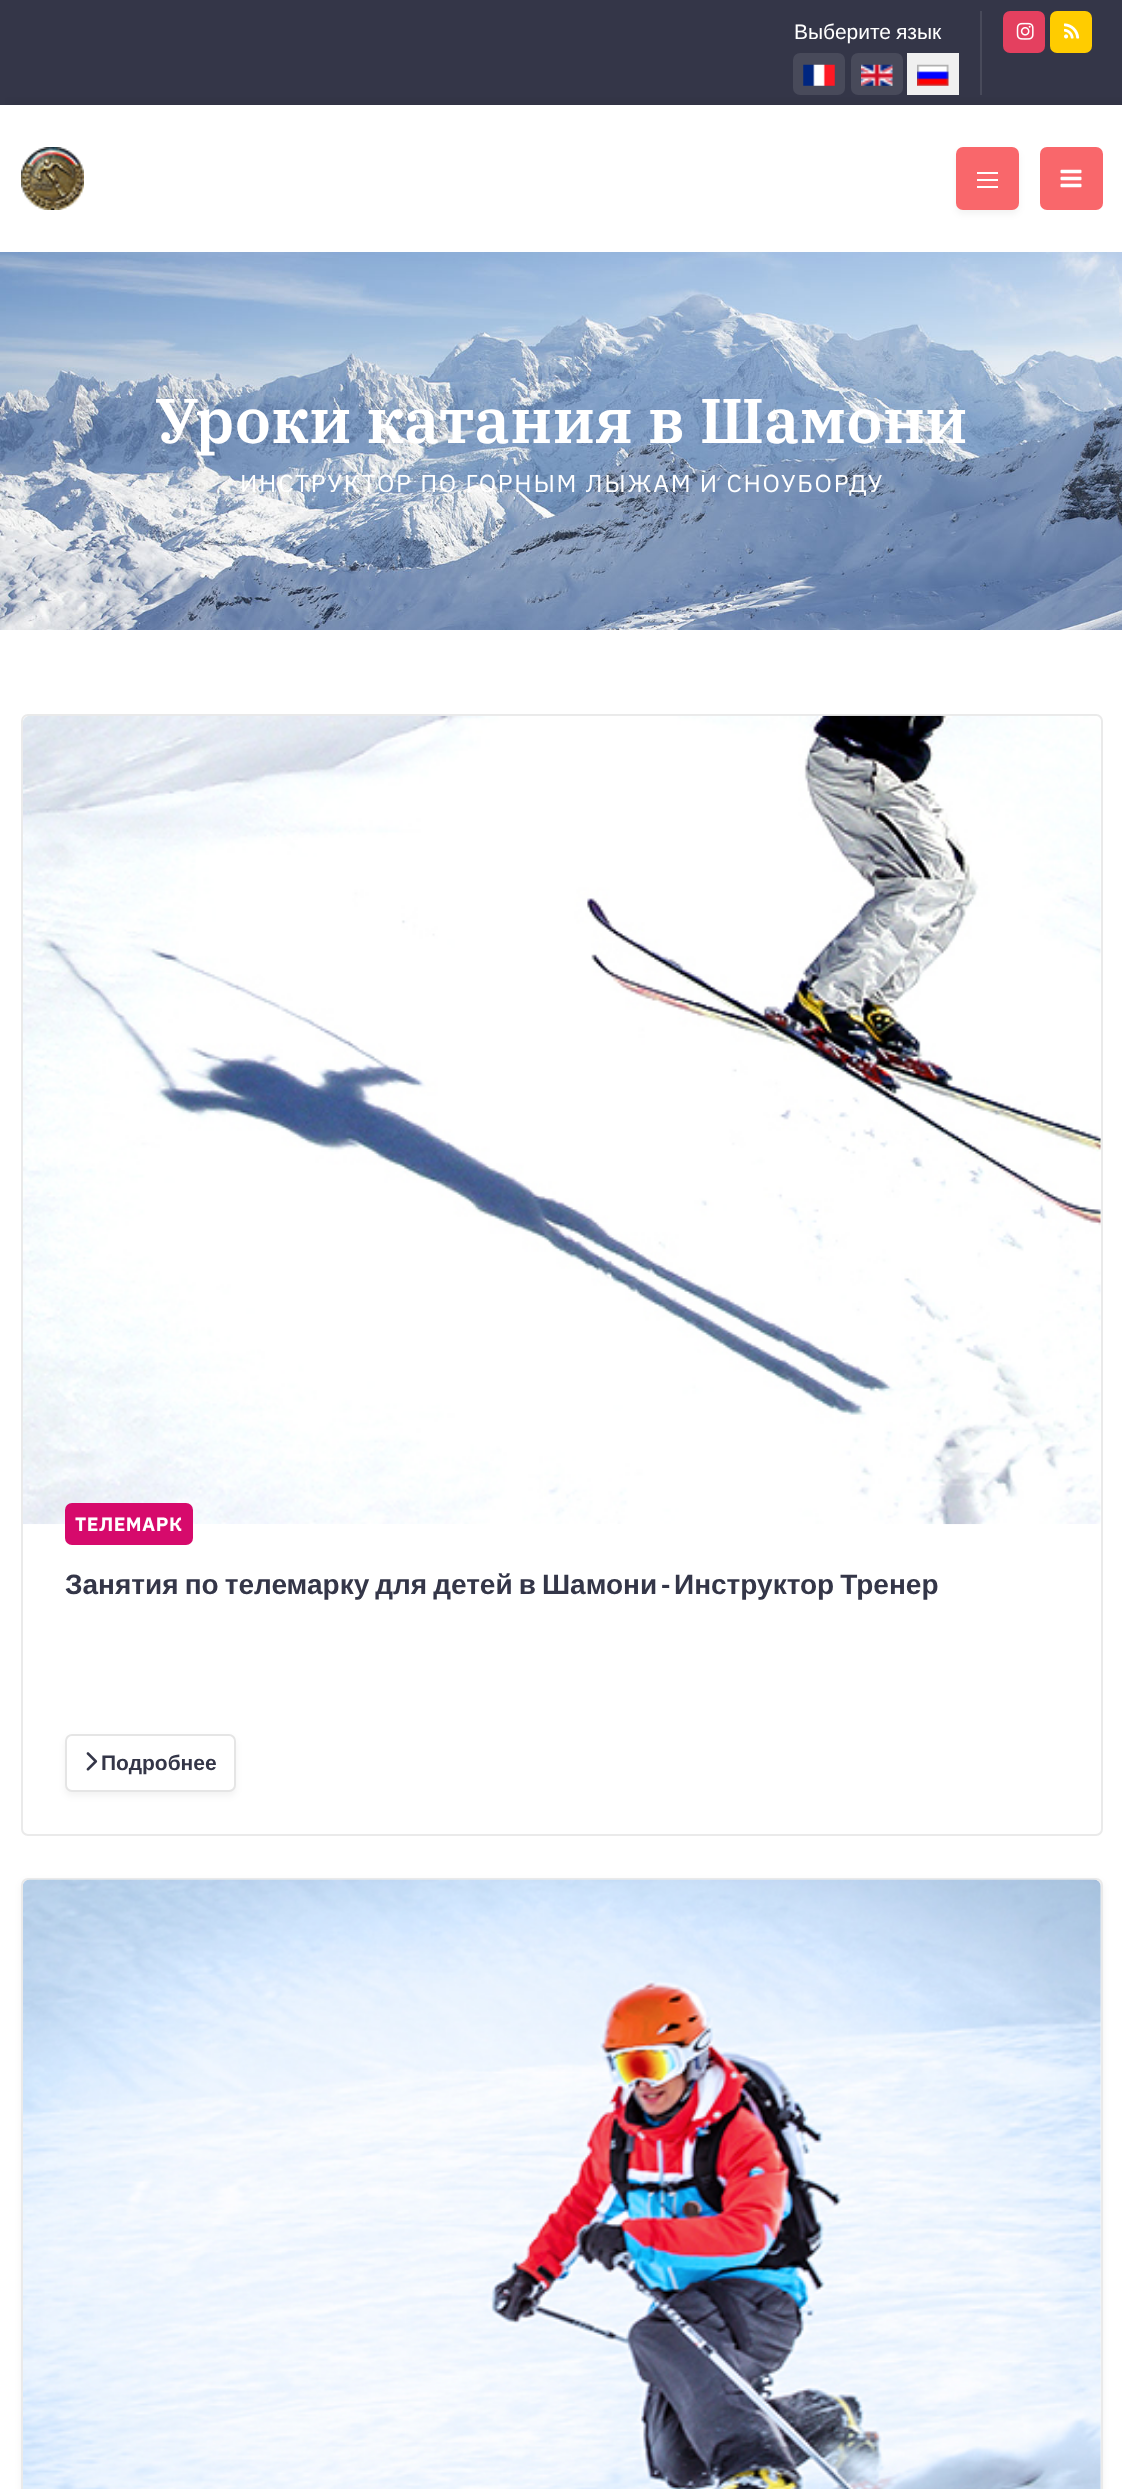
<svg xmlns="http://www.w3.org/2000/svg" width="1122" height="2489" viewBox="0 0 1122 2489">
  <defs>
    <clipPath id="clip1"><rect x="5" y="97" width="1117" height="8"/></clipPath>
    <filter id="blur1" x="-50%" y="-200%" width="200%" height="500%"><feGaussianBlur stdDeviation="9"/></filter>
    <filter id="blur2" x="-50%" y="-200%" width="200%" height="500%"><feGaussianBlur stdDeviation="3.5"/></filter>
  </defs>
  <rect width="100%" height="100%" fill="#ffffff"/>
  <rect x="0" y="0" width="1122" height="105" fill="#343648"/>
  <rect x="980" y="11" width="2" height="84" fill="#484a5a"/>
  <text x="794" y="39" word-spacing="-1" font-family="Liberation Sans" font-size="21" fill="#ffffff">Выберите язык</text>
  <rect x="793" y="53" width="52" height="42" rx="7" fill="#484a5a"/>
  <image x="803" y="64" width="32" height="22" href="img1.png"/>
  <rect x="851" y="53" width="52" height="42" rx="7" fill="#484a5a"/>
  <image x="861" y="64" width="32" height="22" href="img2.png"/>
  <rect x="907" y="53" width="52" height="42" fill="#f0f0f0"/>
  <image x="917" y="64" width="32" height="22" href="img3.png"/>
  <rect x="1003" y="11" width="42" height="42" rx="7" fill="#e4405f"/>
  <image x="1016" y="22" width="18" height="18" href="img4.png"/>
  <rect x="1050" y="11" width="42" height="42" rx="7" fill="#ffcc00"/>
  <image x="1064" y="23" width="16" height="16" href="img5.png"/>
  <g clip-path="url(#clip1)">
    <rect x="7" y="105" width="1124" height="147" fill="#000000" fill-opacity="0.1" filter="url(#blur1)"/>
  </g>
  <image x="21" y="147" width="63" height="63" href="img6.png"/>
  <rect x="956" y="151" width="63" height="63" rx="7" fill="#000000" fill-opacity="0.05" filter="url(#blur2)"/>
  <rect x="956" y="147" width="63" height="63" rx="7" fill="#f9676b"/>
  <rect x="977" y="172" width="21" height="2" fill="#ffffff"/>
  <rect x="977" y="179" width="21" height="2" fill="#ffffff"/>
  <rect x="977" y="186" width="21" height="2" fill="#ffffff"/>
  <rect x="1040" y="147" width="63" height="63" rx="7" fill="#f9676b"/>
  <image x="1060" y="169" width="22" height="19" href="img7.png"/>
  <image x="0" y="252" width="1122" height="378" href="img8.png"/>
  <text x="155" y="443" font-family="IBM Plex Serif" font-size="63" font-weight="600" fill="#ffffff">Уроки катания в Шамони</text>
  <text x="240" y="492" font-family="IBM Plex Sans" font-size="24.5" letter-spacing="1.75" fill="#ffffff">ИНСТРУКТОР ПО ГОРНЫМ ЛЫЖАМ И СНОУБОРДУ</text>
  <rect x="22" y="715" width="1080" height="1120" rx="6" fill="none" stroke="#eaeaea" stroke-width="2"/>
  <image x="23" y="715" width="1078" height="810" href="img9.png"/>
  <rect x="65" y="1503" width="128" height="42" rx="7" fill="#d60a6c"/>
  <text x="75" y="1531" font-family="IBM Plex Sans" font-size="19.25" font-weight="bold" letter-spacing="0.5" fill="#ffffff">ТЕЛЕМАРК</text>
  <text x="65" y="1594" word-spacing="-1.75" font-family="Liberation Sans" font-size="28" font-weight="bold" fill="#343648">Занятия по телемарку для детей в Шамони</text>
  <text x="661" y="1594" font-family="Archivo" font-size="28" font-weight="600" fill="#343648">-</text>
  <text x="674" y="1594" word-spacing="-1.75" font-family="Liberation Sans" font-size="28" font-weight="bold" fill="#343648">Инструктор Тренер</text>
  <rect x="65" y="1738" width="171" height="58" rx="7" fill="#000000" fill-opacity="0.05" filter="url(#blur2)"/>
  <rect x="66" y="1735" width="169" height="56" rx="6" fill="#ffffff" stroke="#e5e5e5" stroke-width="2"/>
  <image x="86" y="1752" width="12" height="19" href="img10.png"/>
  <text x="101" y="1770" font-family="Liberation Sans" font-size="21" font-weight="bold" fill="#343648">Подробнее</text>
  <rect x="21" y="1881" width="1082" height="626" rx="7" fill="#000000" fill-opacity="0.05" filter="url(#blur2)"/>
  <rect x="22" y="1879" width="1080" height="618" rx="6" fill="none" stroke="#eaeaea" stroke-width="2"/>
  <image x="23" y="1879" width="1078" height="610" href="img11.png"/>
</svg>
